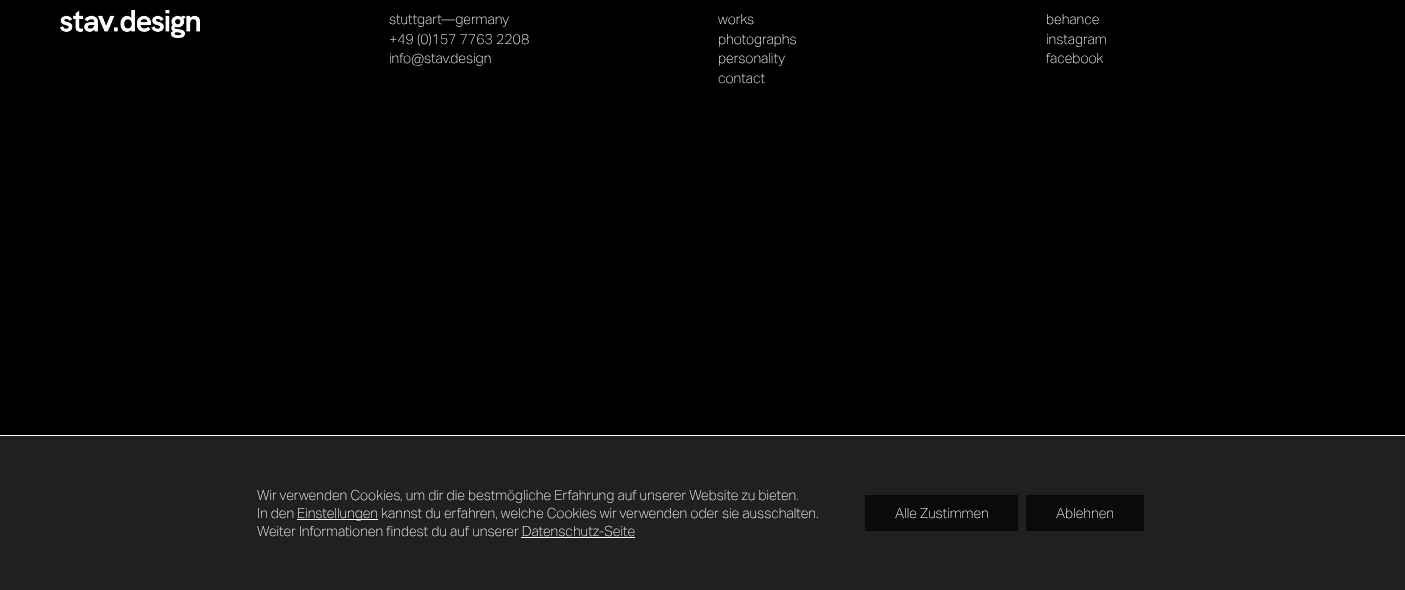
<svg xmlns="http://www.w3.org/2000/svg" width="1405" height="590" viewBox="0 0 1405 590">
  <rect width="100%" height="100%" fill="#000000"/>
  <image x="60" y="10" width="140" height="28" href="img1.png"/>
  <text x="389" y="24" font-family="'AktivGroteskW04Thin'" font-size="14" font-weight="100" fill="#ffffff">stuttgart—germany</text>
  <text x="389" y="44" font-family="'AktivGroteskW04Thin'" font-size="14" font-weight="100" fill="#ffffff">+49 (0)157 7763 2208</text>
  <text x="389" y="63" font-family="'AktivGroteskW04Thin'" font-size="14" font-weight="100" fill="#ffffff">info@stav.design</text>
  <text x="718" y="24" font-family="'AktivGroteskW04Thin'" font-size="14" font-weight="100" fill="#ffffff">works</text>
  <text x="718" y="44" font-family="'AktivGroteskW04Thin'" font-size="14" font-weight="100" fill="#ffffff">photographs</text>
  <text x="718" y="63" font-family="'AktivGroteskW04Thin'" font-size="14" font-weight="100" fill="#ffffff">personality</text>
  <text x="718" y="83" font-family="'AktivGroteskW04Thin'" font-size="14" font-weight="100" fill="#ffffff">contact</text>
  <text x="1046" y="24" font-family="'AktivGroteskW04Thin'" font-size="14" font-weight="100" fill="#ffffff">behance</text>
  <text x="1046" y="44" font-family="'AktivGroteskW04Thin'" font-size="14" font-weight="100" fill="#ffffff">instagram</text>
  <text x="1046" y="63" font-family="'AktivGroteskW04Thin'" font-size="14" font-weight="100" fill="#ffffff">facebook</text>
  <rect x="0" y="436" width="1405" height="154" fill="#202020"/>
  <rect x="0" y="435" width="1405" height="1" fill="#ffffff"/>
  <text x="257" y="500" font-family="'AktivGroteskW04Thin'" font-size="14" font-weight="100" fill="#ffffff">Wir verwenden Cookies, um dir die bestmögliche Erfahrung auf unserer Website zu bieten.</text>
  <text x="257" y="518" font-family="'AktivGroteskW04Thin'" font-size="14" font-weight="100" fill="#ffffff">In den</text>
  <rect x="297" y="519" width="81" height="1" fill="#ffffff"/>
  <text x="297" y="518" font-family="'AktivGroteskW04Thin'" font-size="14" font-weight="100" fill="#ffffff">Einstellungen kannst du erfahren, welche Cookies wir verwenden oder sie ausschalten.</text>
  <text x="257" y="536" font-family="'AktivGroteskW04Thin'" font-size="14" font-weight="100" fill="#ffffff">Weiter Informationen findest du auf unserer Datenschutz-Seite</text>
  <rect x="521" y="537" width="114" height="1" fill="#ffffff"/>
  <rect x="865" y="495" width="153" height="36" fill="#0a0a0a"/>
  <text x="895" y="518" font-family="'AktivGroteskW04Thin'" font-size="14" font-weight="100" fill="#ffffff">Alle Zustimmen</text>
  <rect x="1026" y="495" width="118" height="36" fill="#0a0a0a"/>
  <text x="1056" y="518" font-family="'AktivGroteskW04Thin'" font-size="14" font-weight="100" fill="#ffffff">Ablehnen</text>
</svg>
